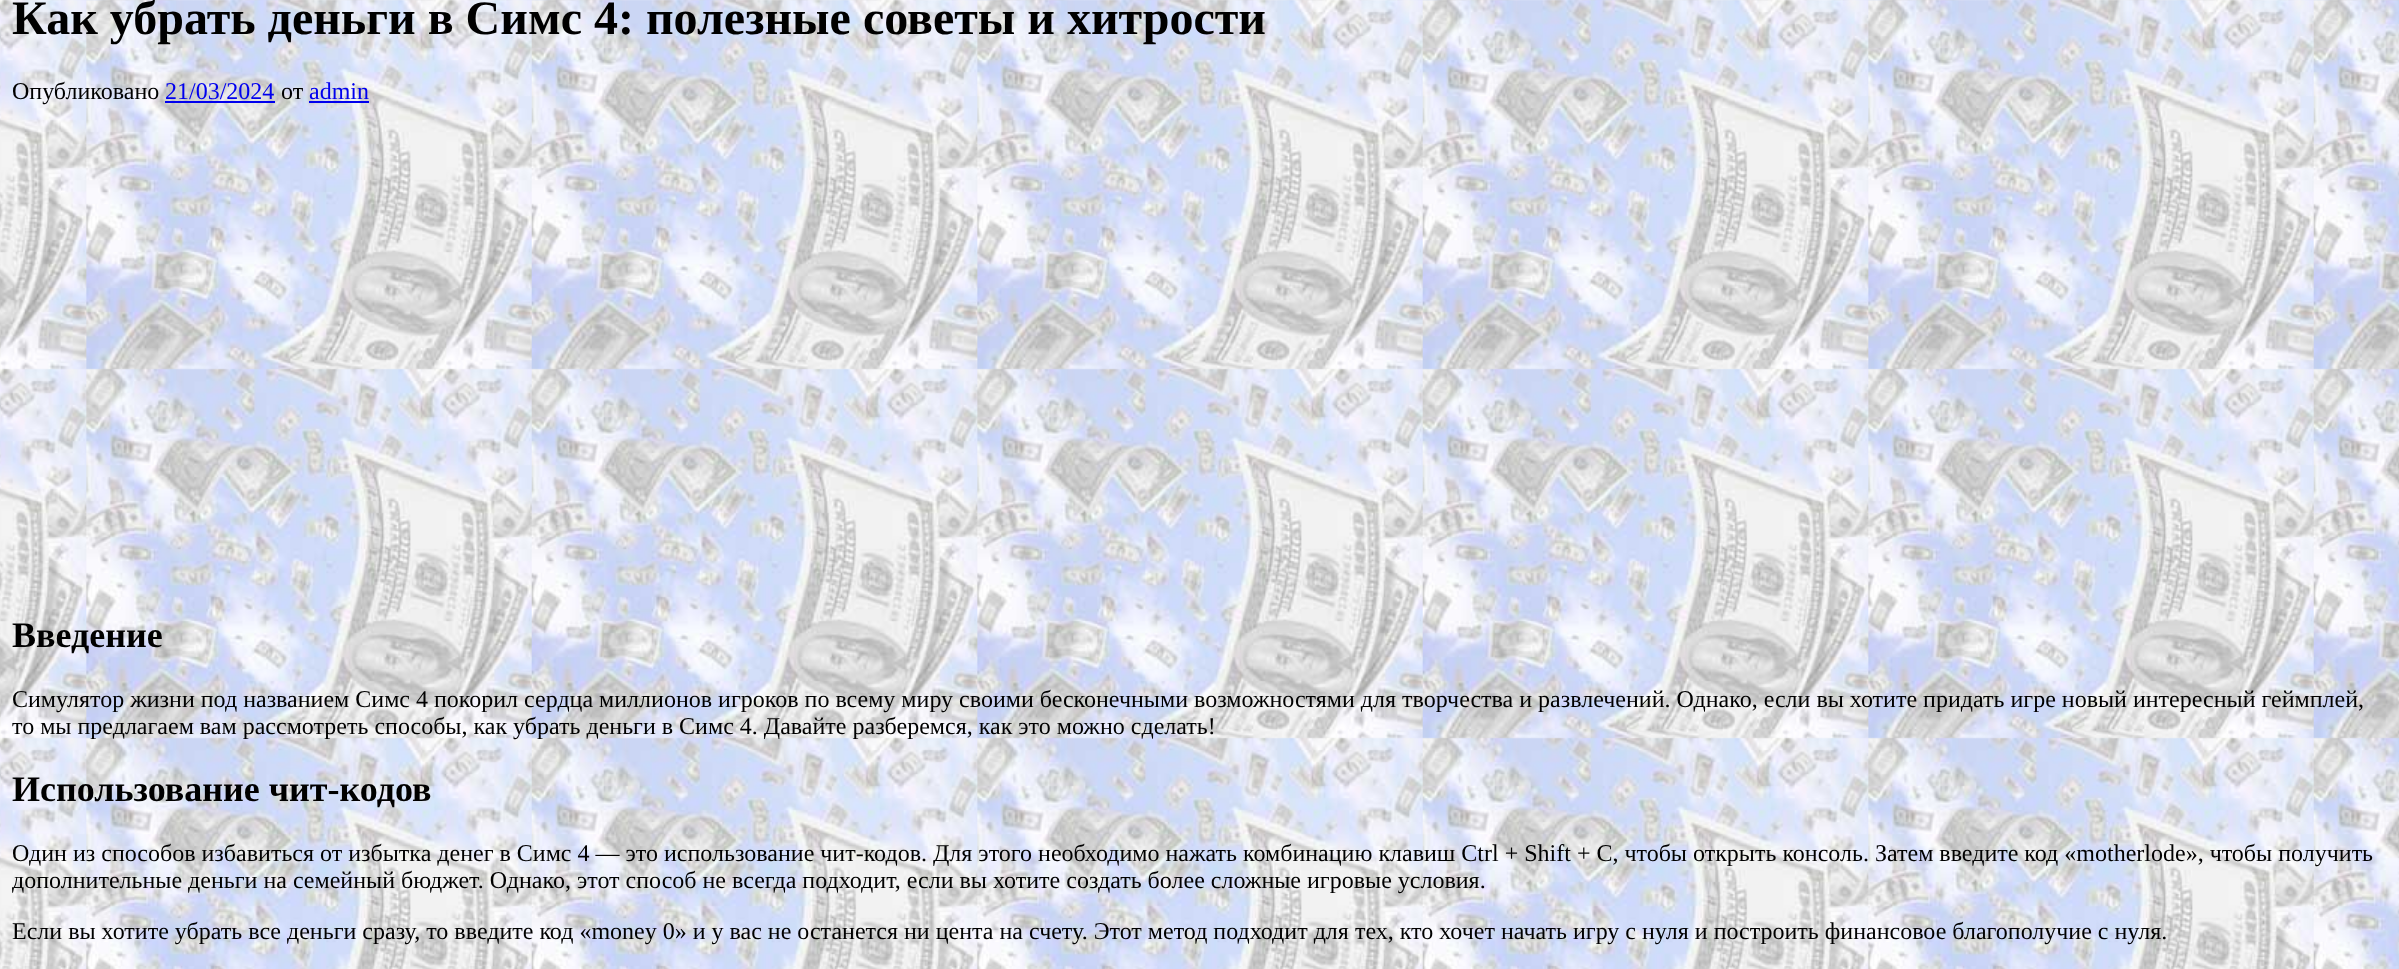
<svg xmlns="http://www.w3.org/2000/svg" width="2399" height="969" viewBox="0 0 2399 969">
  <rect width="100%" height="100%" fill="#ffffff"/>
  <image x="0" y="0" width="2399" height="969" href="img1.png"/>
  <text x="12" y="34" font-family="Liberation Serif" font-size="48" font-weight="bold" fill="#000000">Как убрать деньги в Симс 4: полезные советы и хитрости</text>
  <text x="12" y="99" font-family="Liberation Serif" font-size="24" fill="#000000">Опубликовано</text>
  <text x="165" y="99" font-family="Liberation Serif" font-size="24" fill="#0000ee">21/03/2024</text>
  <rect x="165" y="101" width="110" height="2" fill="#0000ee"/>
  <text x="281" y="99" font-family="Liberation Serif" font-size="24" fill="#000000">от</text>
  <text x="309" y="99" font-family="Liberation Serif" font-size="24" fill="#0000ee">admin</text>
  <rect x="309" y="101" width="60" height="2" fill="#0000ee"/>
  <text x="12" y="647" font-family="Liberation Serif" font-size="36" font-weight="bold" fill="#000000">Введение</text>
  <text x="12" y="707" font-family="Liberation Serif" font-size="24" fill="#000000">Симулятор жизни под названием Симс 4 покорил сердца миллионов игроков по всему миру своими бесконечными возможностями для творчества и развлечений. Однако, если вы хотите придать игре новый интересный геймплей,</text>
  <text x="12" y="734" font-family="Liberation Serif" font-size="24" fill="#000000">то мы предлагаем вам рассмотреть способы, как убрать деньги в Симс 4. Давайте разберемся, как это можно сделать!</text>
  <text x="12" y="801" font-family="Liberation Serif" font-size="36" font-weight="bold" fill="#000000">Использование чит-кодов</text>
  <text x="12" y="861" font-family="Liberation Serif" font-size="24" fill="#000000">Один из способов избавиться от избытка денег в Симс 4 — это использование чит-кодов. Для этого необходимо нажать комбинацию клавиш Ctrl + Shift + C, чтобы открыть консоль. Затем введите код «motherlode», чтобы получить</text>
  <text x="12" y="888" font-family="Liberation Serif" font-size="24" fill="#000000">дополнительные деньги на семейный бюджет. Однако, этот способ не всегда подходит, если вы хотите создать более сложные игровые условия.</text>
  <text x="12" y="939" font-family="Liberation Serif" font-size="24" fill="#000000">Если вы хотите убрать все деньги сразу, то введите код «money 0» и у вас не останется ни цента на счету. Этот метод подходит для тех, кто хочет начать игру с нуля и построить финансовое благополучие с нуля.</text>
</svg>
